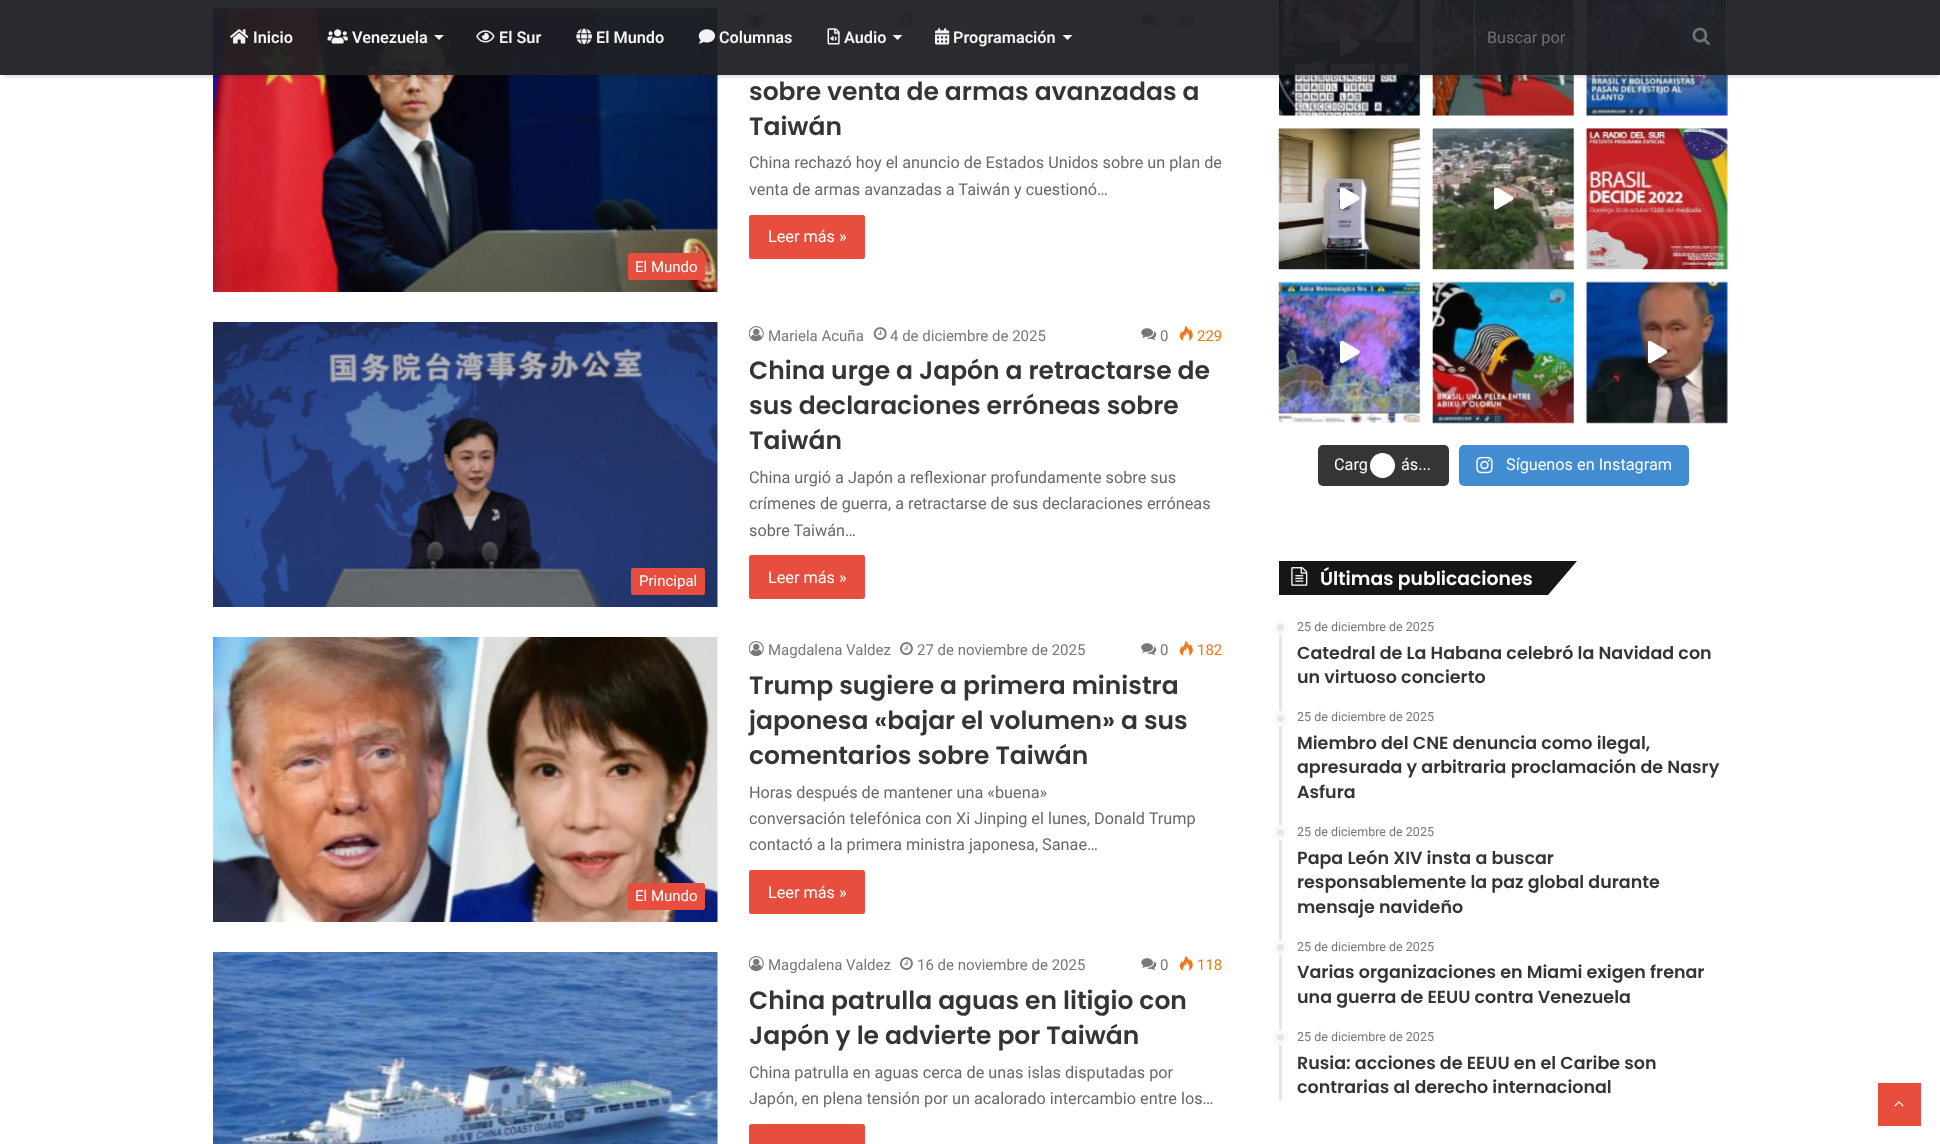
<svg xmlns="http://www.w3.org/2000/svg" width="1940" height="1144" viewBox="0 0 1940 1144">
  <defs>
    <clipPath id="clip1"><rect x="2" y="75" width="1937" height="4"/></clipPath>
    <filter id="blur1" x="-50%" y="-200%" width="200%" height="500%"><feGaussianBlur stdDeviation="1"/></filter>
    <clipPath id="clip2"><rect x="1488" y="28" width="207" height="18"/></clipPath>
  </defs>
  <rect width="100%" height="100%" fill="#ffffff"/>
  <image x="749" y="12" width="15" height="16" href="img9.png"/>
  <image x="900" y="13" width="13" height="14" href="img10.png"/>
  <image x="1141" y="14" width="16" height="13" href="img11.png"/>
  <image x="1179" y="12" width="14" height="15" href="img12.png"/>
  <image x="213" y="8" width="505" height="284" href="img13.png"/>
  <image x="1279" y="0" width="142" height="116" href="img22.png"/>
  <image x="1340" y="34" width="20" height="22" href="img23.png"/>
  <image x="1432" y="0" width="142" height="116" href="img24.png"/>
  <image x="1585" y="0" width="143" height="116" href="img25.png"/>
  <g clip-path="url(#clip1)">
    <rect x="3" y="8" width="1935" height="70" fill="#000000" fill-opacity="0.1" filter="url(#blur1)"/>
  </g>
  <rect x="0" y="0" width="1940" height="75" fill="#1f2024" fill-opacity="0.95"/>
  <image x="230" y="29" width="19" height="15" href="img1.png"/>
  <text x="253" y="43" font-family="Roboto" font-size="16.25" font-weight="600" fill="#f4f4f4">Inicio</text>
  <image x="327" y="29" width="21" height="15" href="img2.png"/>
  <text x="352" y="43" font-family="Roboto" font-size="16.25" font-weight="600" fill="#f4f4f4">Venezuela</text>
  <path d="M434 35H444L439 40Z" fill="#f4f4f4"/>
  <image x="476" y="30" width="19" height="13" href="img3.png"/>
  <text x="499" y="43" font-family="Roboto" font-size="16.25" font-weight="600" fill="#f4f4f4">El Sur</text>
  <image x="576" y="28" width="16" height="17" href="img4.png"/>
  <text x="596" y="43" font-family="Roboto" font-size="16.25" font-weight="600" fill="#f4f4f4">El Mundo</text>
  <image x="698" y="29" width="17" height="15" href="img5.png"/>
  <text x="719" y="43" font-family="Roboto" font-size="16.25" font-weight="600" fill="#f4f4f4">Columnas</text>
  <image x="827" y="28" width="13" height="17" href="img6.png"/>
  <text x="844" y="43" font-family="Roboto" font-size="16.25" font-weight="600" fill="#f4f4f4">Audio</text>
  <path d="M892.5 35H902.5L897.5 40Z" fill="#f4f4f5"/>
  <image x="935" y="28" width="15" height="17" href="img7.png"/>
  <text x="953" y="43" font-family="Roboto" font-size="16.25" font-weight="600" fill="#f4f4f4">Programación</text>
  <path d="M1062.5 35H1072.5L1067.5 40Z" fill="#f4f4f5"/>
  <rect x="1726" y="0" width="1" height="75" fill="#ffffff" fill-opacity="0.07"/>
  <rect x="1474" y="0" width="1" height="75" fill="#ffffff" fill-opacity="0.07"/>
  <g clip-path="url(#clip2)">
    <text x="1487" y="43" font-family="Roboto" font-size="16.25" fill="#717171">Buscar por</text>
  </g>
  <image x="1692" y="27" width="18" height="18" href="img8.png"/>
  <text x="749" y="100" font-family="Poppins" font-size="25" font-weight="600" fill="#353535">sobre venta de armas avanzadas a</text>
  <text x="749" y="135" font-family="Poppins" font-size="25" font-weight="600" fill="#353535">Taiwán</text>
  <text x="749" y="168" font-family="Roboto" font-size="16.25" fill="#686868">China rechazó hoy el anuncio de Estados Unidos sobre un plan de</text>
  <text x="749" y="195" font-family="Roboto" font-size="16.25" fill="#686868">venta de armas avanzadas a Taiwán y cuestionó…</text>
  <rect x="749" y="215" width="116" height="44" rx="2.5" fill="#e74e3e"/>
  <text x="768" y="242" font-family="Roboto" font-size="16.25" fill="#ffffff">Leer más »</text>
  <rect x="628" y="253" width="77" height="27" rx="2.5" fill="#e74e3e"/>
  <text x="635" y="272" font-family="Roboto" font-size="15" fill="#ffffff">El Mundo</text>
  <image x="213" y="322" width="505" height="285" href="img14.png"/>
  <rect x="631" y="568" width="74" height="27" rx="2.5" fill="#e74e3e"/>
  <text x="639" y="586" font-family="Roboto" font-size="15" fill="#ffffff">Principal</text>
  <image x="749" y="326" width="15" height="16" href="img15.png"/>
  <text x="768" y="341" font-family="Roboto" font-size="15" fill="#777777">Mariela Acuña</text>
  <image x="873" y="327" width="14" height="13" href="img16.png"/>
  <text x="890" y="341" font-family="Roboto" font-size="15" fill="#777777">4 de diciembre de 2025</text>
  <image x="1141" y="328" width="16" height="12" href="img17.png"/>
  <text x="1160" y="341" font-family="Roboto" font-size="15" fill="#777777">0</text>
  <image x="1179" y="326" width="14" height="15" href="img18.png"/>
  <text x="1197" y="341" font-family="Roboto" font-size="15" fill="#f47614">229</text>
  <text x="749" y="379" font-family="Poppins" font-size="25" font-weight="600" fill="#353535">China urge a Japón a retractarse de</text>
  <text x="749" y="414" font-family="Poppins" font-size="25" font-weight="600" fill="#353535">sus declaraciones erróneas sobre</text>
  <text x="749" y="449" font-family="Poppins" font-size="25" font-weight="600" fill="#353535">Taiwán</text>
  <text x="749" y="483" font-family="Roboto" font-size="16.25" fill="#686868">China urgió a Japón a reflexionar profundamente sobre sus</text>
  <text x="749" y="509" font-family="Roboto" font-size="16.25" fill="#686868">crímenes de guerra, a retractarse de sus declaraciones erróneas</text>
  <text x="749" y="536" font-family="Roboto" font-size="16.25" fill="#686868">sobre Taiwán…</text>
  <rect x="749" y="555" width="116" height="44" rx="2.5" fill="#e74e3e"/>
  <text x="768" y="583" font-family="Roboto" font-size="16.25" fill="#ffffff">Leer más »</text>
  <image x="213" y="637" width="505" height="285" href="img19.png"/>
  <rect x="628" y="883" width="77" height="27" rx="2.5" fill="#e74e3e"/>
  <text x="635" y="901" font-family="Roboto" font-size="15" fill="#ffffff">El Mundo</text>
  <image x="749" y="641" width="15" height="16" href="img15.png"/>
  <text x="768" y="655" font-family="Roboto" font-size="15" fill="#777777">Magdalena Valdez</text>
  <image x="900" y="642" width="13" height="13" href="img20.png"/>
  <text x="917" y="655" font-family="Roboto" font-size="15" fill="#777777">27 de noviembre de 2025</text>
  <image x="1141" y="643" width="16" height="12" href="img17.png"/>
  <text x="1160" y="655" font-family="Roboto" font-size="15" fill="#777777">0</text>
  <image x="1179" y="641" width="14" height="15" href="img18.png"/>
  <text x="1197" y="655" font-family="Roboto" font-size="15" fill="#f47614">182</text>
  <text x="749" y="694" font-family="Poppins" font-size="25" font-weight="600" fill="#353535">Trump sugiere a primera ministra</text>
  <text x="749" y="729" font-family="Poppins" font-size="25" font-weight="600" fill="#353535">japonesa «bajar el volumen» a sus</text>
  <text x="749" y="764" font-family="Poppins" font-size="25" font-weight="600" fill="#353535">comentarios sobre Taiwán</text>
  <text x="749" y="798" font-family="Roboto" font-size="16.25" fill="#686868">Horas después de mantener una «buena»</text>
  <text x="749" y="824" font-family="Roboto" font-size="16.25" fill="#686868">conversación telefónica con Xi Jinping el lunes, Donald Trump</text>
  <text x="749" y="850" font-family="Roboto" font-size="16.25" fill="#686868">contactó a la primera ministra japonesa, Sanae…</text>
  <rect x="749" y="870" width="116" height="44" rx="2.5" fill="#e74e3e"/>
  <text x="768" y="898" font-family="Roboto" font-size="16.25" fill="#ffffff">Leer más »</text>
  <image x="213" y="952" width="505" height="192" href="img21.png"/>
  <image x="749" y="956" width="15" height="16" href="img15.png"/>
  <text x="768" y="970" font-family="Roboto" font-size="15" fill="#777777">Magdalena Valdez</text>
  <image x="900" y="957" width="13" height="13" href="img20.png"/>
  <text x="917" y="970" font-family="Roboto" font-size="15" fill="#777777">16 de noviembre de 2025</text>
  <image x="1141" y="958" width="16" height="12" href="img17.png"/>
  <text x="1160" y="970" font-family="Roboto" font-size="15" fill="#777777">0</text>
  <image x="1179" y="956" width="14" height="15" href="img18.png"/>
  <text x="1197" y="970" font-family="Roboto" font-size="15" fill="#f47614">118</text>
  <text x="749" y="1009" font-family="Poppins" font-size="25" font-weight="600" fill="#353535">China patrulla aguas en litigio con</text>
  <text x="749" y="1044" font-family="Poppins" font-size="25" font-weight="600" fill="#353535">Japón y le advierte por Taiwán</text>
  <text x="749" y="1078" font-family="Roboto" font-size="16.25" fill="#686868">China patrulla en aguas cerca de unas islas disputadas por</text>
  <text x="749" y="1104" font-family="Roboto" font-size="16.25" fill="#686868">Japón, en plena tensión por un acalorado intercambio entre los…</text>
  <rect x="749" y="1124" width="116" height="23" rx="2.5" fill="#e74e3e"/>
  <image x="1278" y="128" width="143" height="142" href="img26.png"/>
  <image x="1340" y="188" width="20" height="22" href="img27.png"/>
  <image x="1432" y="128" width="142" height="142" href="img28.png"/>
  <image x="1494" y="188" width="20" height="22" href="img29.png"/>
  <image x="1585" y="128" width="143" height="142" href="img30.png"/>
  <image x="1278" y="281" width="143" height="143" href="img31.png"/>
  <image x="1340" y="341" width="20" height="23" href="img32.png"/>
  <image x="1432" y="281" width="142" height="143" href="img33.png"/>
  <image x="1585" y="281" width="143" height="143" href="img34.png"/>
  <image x="1648" y="341" width="20" height="23" href="img35.png"/>
  <rect x="1318" y="445" width="131" height="41" rx="5" fill="#353535"/>
  <text x="1334" y="470" font-family="Roboto" font-size="16.25" fill="#ffffff">Carg</text>
  <circle cx="1382.5" cy="465.5" r="12.5" fill="#ffffff"/>
  <text x="1401" y="470" font-family="Roboto" font-size="16.25" fill="#ffffff">ás...</text>
  <rect x="1459" y="445" width="230" height="41" rx="5" fill="#428cd1"/>
  <image x="1476" y="456" width="17" height="18" href="img36.png"/>
  <text x="1506" y="470" font-family="Roboto" font-size="16.25" fill="#ffffff">Síguenos en Instagram</text>
  <rect x="1279" y="561" width="111" height="34" fill="#161616"/>
  <path d="M1390 561H1577L1548 595H1362Z" fill="#161616"/>
  <image x="1291" y="567" width="17" height="19" href="img37.png"/>
  <text x="1320" y="585" font-family="Poppins" font-size="18.75" font-weight="600" fill="#ffffff">Últimas publicaciones</text>
  <rect x="1279" y="620" width="3" height="480" fill="#e6e6e6"/>
  <circle cx="1280.5" cy="627.5" r="7.5" fill="#e6e6e6"/>
  <circle cx="1280.5" cy="627.5" r="5.5" fill="none" stroke="#ffffff" stroke-opacity="0.8" stroke-width="4"/>
  <text x="1297" y="631" font-family="Roboto" font-size="12.5" fill="#777777">25 de diciembre de 2025</text>
  <text x="1297" y="659" font-family="Poppins" font-size="17.5" font-weight="600" fill="#353535">Catedral de La Habana celebró la Navidad con</text>
  <text x="1297" y="683" font-family="Poppins" font-size="17.5" font-weight="600" fill="#353535">un virtuoso concierto</text>
  <circle cx="1280.5" cy="718.5" r="7.5" fill="#e6e6e6"/>
  <circle cx="1280.5" cy="718.5" r="5.5" fill="none" stroke="#ffffff" stroke-opacity="0.8" stroke-width="4"/>
  <text x="1297" y="721" font-family="Roboto" font-size="12.5" fill="#777777">25 de diciembre de 2025</text>
  <text x="1297" y="749" font-family="Poppins" font-size="17.5" font-weight="600" fill="#353535">Miembro del CNE denuncia como ilegal,</text>
  <text x="1297" y="773" font-family="Poppins" font-size="17.5" font-weight="600" fill="#353535">apresurada y arbitraria proclamación de Nasry</text>
  <text x="1297" y="798" font-family="Poppins" font-size="17.5" font-weight="600" fill="#353535">Asfura</text>
  <circle cx="1280.5" cy="832.5" r="7.5" fill="#e6e6e6"/>
  <circle cx="1280.5" cy="832.5" r="5.5" fill="none" stroke="#ffffff" stroke-opacity="0.8" stroke-width="4"/>
  <text x="1297" y="836" font-family="Roboto" font-size="12.5" fill="#777777">25 de diciembre de 2025</text>
  <text x="1297" y="864" font-family="Poppins" font-size="17.5" font-weight="600" fill="#353535">Papa León XIV insta a buscar</text>
  <text x="1297" y="888" font-family="Poppins" font-size="17.5" font-weight="600" fill="#353535">responsablemente la paz global durante</text>
  <text x="1297" y="913" font-family="Poppins" font-size="17.5" font-weight="600" fill="#353535">mensaje navideño</text>
  <circle cx="1280.5" cy="947.5" r="7.5" fill="#e6e6e6"/>
  <circle cx="1280.5" cy="947.5" r="5.5" fill="none" stroke="#ffffff" stroke-opacity="0.8" stroke-width="4"/>
  <text x="1297" y="951" font-family="Roboto" font-size="12.5" fill="#777777">25 de diciembre de 2025</text>
  <text x="1297" y="978" font-family="Poppins" font-size="17.5" font-weight="600" fill="#353535">Varias organizaciones en Miami exigen frenar</text>
  <text x="1297" y="1003" font-family="Poppins" font-size="17.5" font-weight="600" fill="#353535">una guerra de EEUU contra Venezuela</text>
  <circle cx="1280.5" cy="1037.5" r="7.5" fill="#e6e6e6"/>
  <circle cx="1280.5" cy="1037.5" r="5.5" fill="none" stroke="#ffffff" stroke-opacity="0.8" stroke-width="4"/>
  <text x="1297" y="1041" font-family="Roboto" font-size="12.5" fill="#777777">25 de diciembre de 2025</text>
  <text x="1297" y="1069" font-family="Poppins" font-size="17.5" font-weight="600" fill="#353535">Rusia: acciones de EEUU en el Caribe son</text>
  <text x="1297" y="1093" font-family="Poppins" font-size="17.5" font-weight="600" fill="#353535">contrarias al derecho internacional</text>
  <rect x="1878" y="1083" width="43" height="43" fill="#e74c3c"/>
  <image x="1894" y="1101" width="10" height="6" href="img38.png"/>
</svg>
